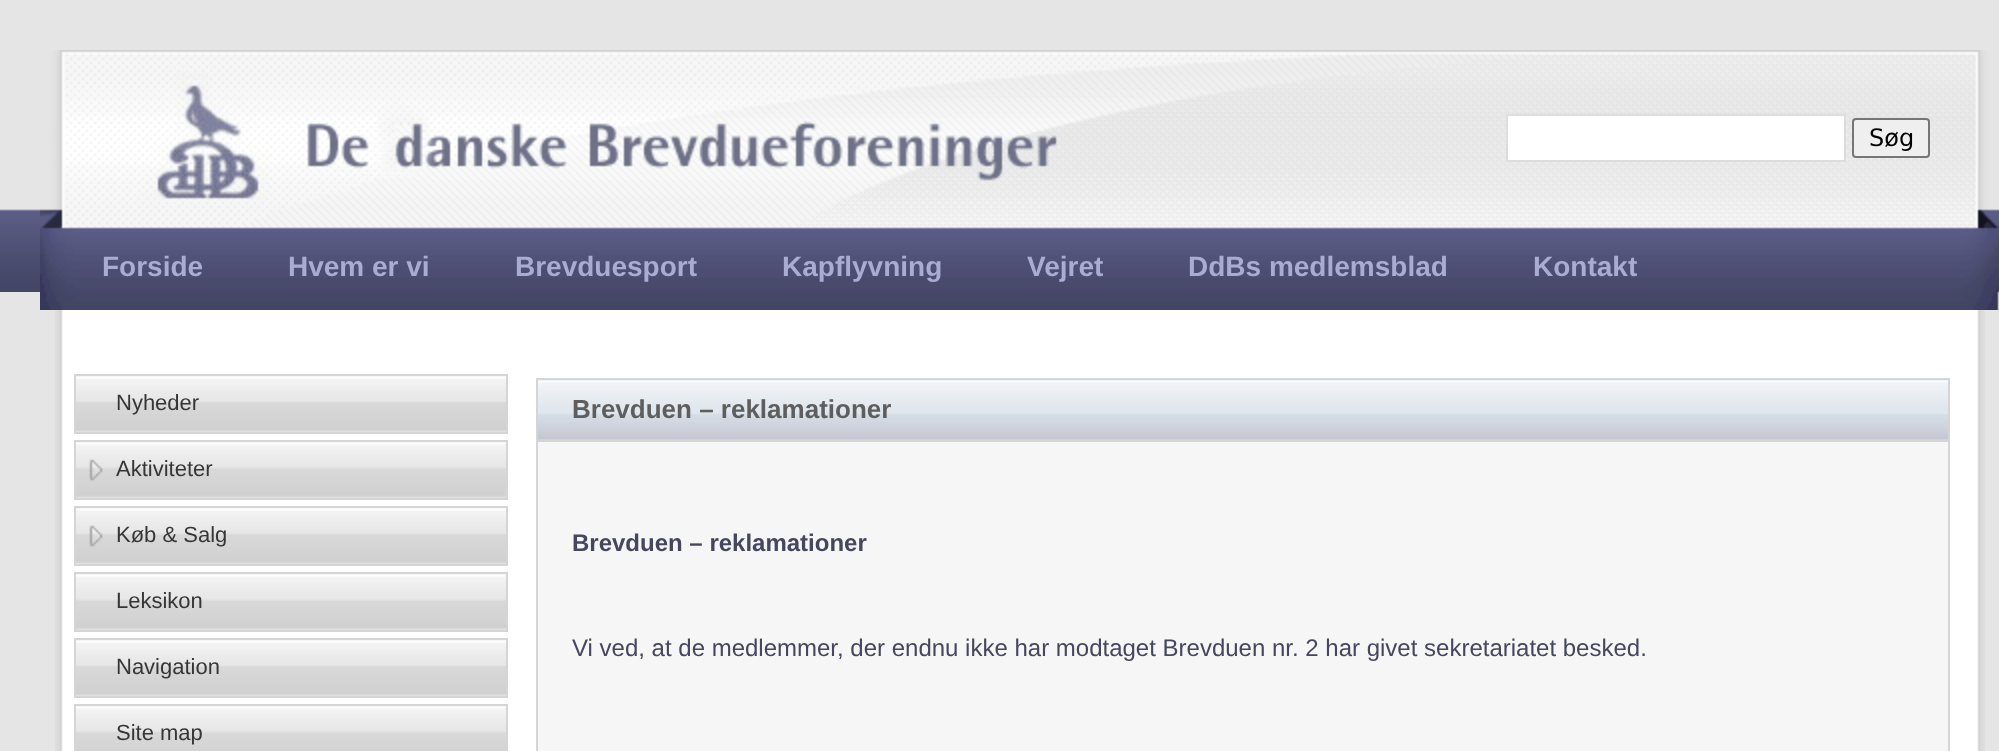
<svg xmlns="http://www.w3.org/2000/svg" width="1999" height="751" viewBox="0 0 1999 751">
  <rect width="100%" height="100%" fill="#e5e5e5"/>
  <image x="0" y="209" width="40" height="83" href="img1.png"/>
  <image x="40" y="50" width="1959" height="260" href="img2.png"/>
  <rect x="1507" y="115" width="338" height="46" fill="#ffffff" stroke="#dcddde" stroke-width="2"/>
  <rect x="1853" y="119" width="76" height="38" rx="3" fill="#efefef" stroke="#767676" stroke-width="2"/>
  <text x="1869" y="146" font-family="DejaVu Sans" font-size="24" fill="#000000">Søg</text>
  <text x="102" y="276" font-family="Liberation Sans" font-size="28" font-weight="bold" fill="#aaacd3">Forside</text>
  <text x="288" y="276" font-family="Liberation Sans" font-size="28" font-weight="bold" fill="#aaacd3">Hvem er vi</text>
  <text x="515" y="276" font-family="Liberation Sans" font-size="28" font-weight="bold" fill="#aaacd3">Brevduesport</text>
  <text x="782" y="276" font-family="Liberation Sans" font-size="28" font-weight="bold" fill="#aaacd3">Kapflyvning</text>
  <text x="1027" y="276" font-family="Liberation Sans" font-size="28" font-weight="bold" fill="#aaacd3">Vejret</text>
  <text x="1188" y="276" font-family="Liberation Sans" font-size="28" font-weight="bold" fill="#aaacd3">DdBs medlemsblad</text>
  <text x="1533" y="276" font-family="Liberation Sans" font-size="28" font-weight="bold" fill="#aaacd3">Kontakt</text>
  <image x="55" y="310" width="1930" height="441" href="img3.png"/>
  <image x="76" y="376" width="430" height="56" href="img4.png"/>
  <rect x="75" y="375" width="432" height="58" fill="none" stroke="#d5d5d5" stroke-width="2"/>
  <text x="116" y="410" font-family="Liberation Sans" font-size="22" fill="#363636">Nyheder</text>
  <image x="76" y="442" width="430" height="56" href="img5.png"/>
  <rect x="75" y="441" width="432" height="58" fill="none" stroke="#d5d5d5" stroke-width="2"/>
  <text x="116" y="476" font-family="Liberation Sans" font-size="22" fill="#363636">Aktiviteter</text>
  <image x="76" y="508" width="430" height="56" href="img5.png"/>
  <rect x="75" y="507" width="432" height="58" fill="none" stroke="#d5d5d5" stroke-width="2"/>
  <text x="116" y="542" font-family="Liberation Sans" font-size="22" fill="#363636">Køb &amp; Salg</text>
  <image x="76" y="574" width="430" height="56" href="img4.png"/>
  <rect x="75" y="573" width="432" height="58" fill="none" stroke="#d5d5d5" stroke-width="2"/>
  <text x="116" y="608" font-family="Liberation Sans" font-size="22" fill="#363636">Leksikon</text>
  <image x="76" y="640" width="430" height="56" href="img4.png"/>
  <rect x="75" y="639" width="432" height="58" fill="none" stroke="#d5d5d5" stroke-width="2"/>
  <text x="116" y="674" font-family="Liberation Sans" font-size="22" fill="#363636">Navigation</text>
  <image x="76" y="706" width="430" height="45" href="img6.png"/>
  <rect x="75" y="705" width="432" height="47" fill="none" stroke="#d5d5d5" stroke-width="2"/>
  <text x="116" y="740" font-family="Liberation Sans" font-size="22" fill="#363636">Site map</text>
  <image x="538" y="380" width="1410" height="60" href="img7.png"/>
  <rect x="537" y="379" width="1412" height="62" fill="none" stroke="#d5d5d5" stroke-width="2"/>
  <text x="572" y="418" font-family="Liberation Sans" font-size="26" font-weight="bold" fill="#5e5e5e">Brevduen – reklamationer</text>
  <rect x="538" y="442" width="1410" height="309" fill="#f6f6f6"/>
  <rect x="1948" y="442" width="2" height="309" fill="#d5d5d5"/>
  <rect x="536" y="442" width="2" height="309" fill="#d5d5d5"/>
  <text x="572" y="551" font-family="Liberation Sans" font-size="24" font-weight="bold" fill="#46465f">Brevduen – reklamationer</text>
  <text x="572" y="656" font-family="Liberation Sans" font-size="24" fill="#46465f">Vi ved, at de medlemmer, der endnu ikke har modtaget Brevduen nr. 2 har givet sekretariatet besked.</text>
</svg>
